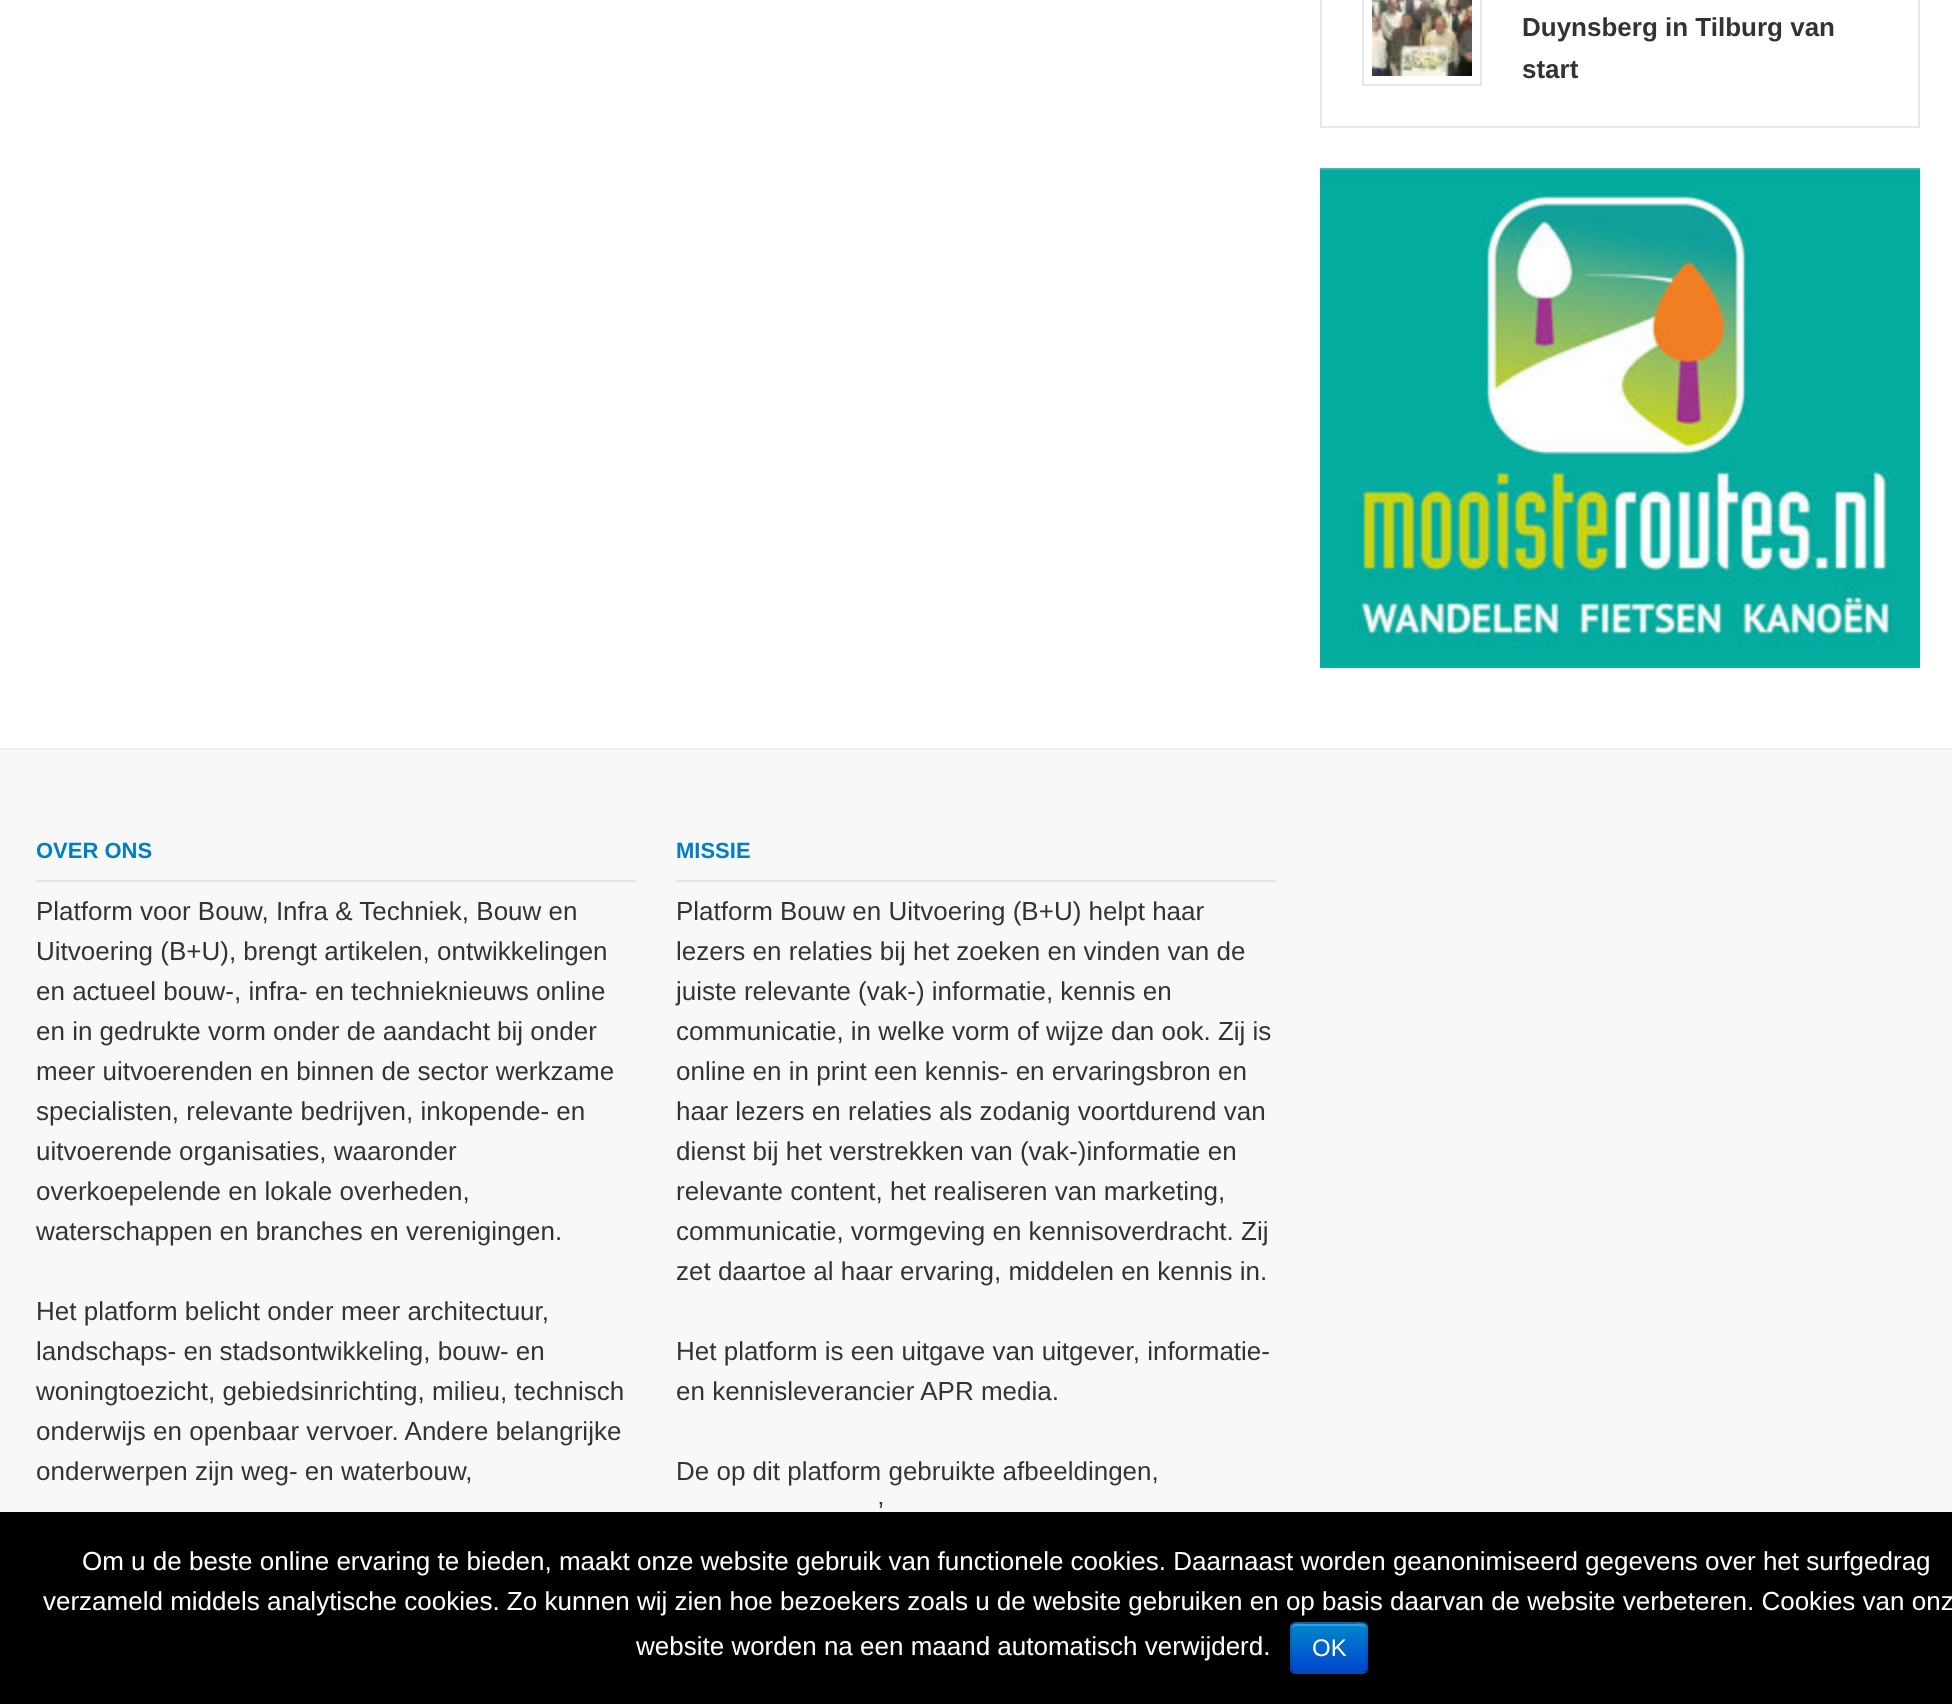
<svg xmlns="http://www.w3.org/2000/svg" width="1952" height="1704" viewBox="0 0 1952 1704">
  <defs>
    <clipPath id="clip1"><rect x="1290" y="1622" width="78" height="52" rx="6"/></clipPath>
    <linearGradient id="g1" gradientUnits="userSpaceOnUse" x1="1329" y1="1624" x2="1329" y2="1672"><stop offset="0" stop-color="#0088cc"/><stop offset="1" stop-color="#0044cc"/></linearGradient>
  </defs>
  <rect width="100%" height="100%" fill="#ffffff"/>
  <rect x="1321" y="-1" width="598" height="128" fill="none" stroke="#e8e8e8" stroke-width="2"/>
  <rect x="1363" y="-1" width="118" height="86" fill="none" stroke="#e8e8e8" stroke-width="2"/>
  <image x="1372" y="0" width="100" height="76" href="img1.png"/>
  <text x="1522" y="36" font-family="Liberation Sans" font-size="26" font-weight="bold" fill="#333333">Duynsberg in Tilburg van</text>
  <text x="1522" y="78" font-family="Liberation Sans" font-size="26" font-weight="bold" fill="#333333">start</text>
  <image x="1320" y="168" width="600" height="500" href="img2.png"/>
  <rect x="0" y="750" width="1952" height="762" fill="#f8f8f8"/>
  <rect x="0" y="748" width="1952" height="2" fill="#eeeeee"/>
  <rect x="36" y="880" width="600" height="2" fill="#e8e8e8"/>
  <text x="36" y="858" font-family="Liberation Sans" font-size="22" font-weight="bold" fill="#007fc4">OVER ONS</text>
  <text x="36" y="920" font-family="Liberation Sans" font-size="26" fill="#333333">Platform voor Bouw, Infra &amp; Techniek, Bouw en</text>
  <text x="36" y="960" font-family="Liberation Sans" font-size="26" fill="#333333">Uitvoering (B+U), brengt artikelen, ontwikkelingen</text>
  <text x="36" y="1000" font-family="Liberation Sans" font-size="26" fill="#333333">en actueel bouw-, infra- en technieknieuws online</text>
  <text x="36" y="1040" font-family="Liberation Sans" font-size="26" fill="#333333">en in gedrukte vorm onder de aandacht bij onder</text>
  <text x="36" y="1080" font-family="Liberation Sans" font-size="26" fill="#333333">meer uitvoerenden en binnen de sector werkzame</text>
  <text x="36" y="1120" font-family="Liberation Sans" font-size="26" fill="#333333">specialisten, relevante bedrijven, inkopende- en</text>
  <text x="36" y="1160" font-family="Liberation Sans" font-size="26" fill="#333333">uitvoerende organisaties, waaronder</text>
  <text x="36" y="1200" font-family="Liberation Sans" font-size="26" fill="#333333">overkoepelende en lokale overheden,</text>
  <text x="36" y="1240" font-family="Liberation Sans" font-size="26" fill="#333333">waterschappen en branches en verenigingen.</text>
  <text x="36" y="1320" font-family="Liberation Sans" font-size="26" fill="#333333">Het platform belicht onder meer architectuur,</text>
  <text x="36" y="1360" font-family="Liberation Sans" font-size="26" fill="#333333">landschaps- en stadsontwikkeling, bouw- en</text>
  <text x="36" y="1400" font-family="Liberation Sans" font-size="26" fill="#333333">woningtoezicht, gebiedsinrichting, milieu, technisch</text>
  <text x="36" y="1440" font-family="Liberation Sans" font-size="26" fill="#333333">onderwijs en openbaar vervoer. Andere belangrijke</text>
  <text x="36" y="1480" font-family="Liberation Sans" font-size="26" fill="#333333">onderwerpen zijn weg- en waterbouw,</text>
  <rect x="676" y="880" width="600" height="2" fill="#e8e8e8"/>
  <text x="676" y="858" font-family="Liberation Sans" font-size="22" font-weight="bold" fill="#007fc4">MISSIE</text>
  <text x="676" y="920" font-family="Liberation Sans" font-size="26" fill="#333333">Platform Bouw en Uitvoering (B+U) helpt haar</text>
  <text x="676" y="960" font-family="Liberation Sans" font-size="26" fill="#333333">lezers en relaties bij het zoeken en vinden van de</text>
  <text x="676" y="1000" font-family="Liberation Sans" font-size="26" fill="#333333">juiste relevante (vak-) informatie, kennis en</text>
  <text x="676" y="1040" font-family="Liberation Sans" font-size="26" fill="#333333">communicatie, in welke vorm of wijze dan ook. Zij is</text>
  <text x="676" y="1080" font-family="Liberation Sans" font-size="26" fill="#333333">online en in print een kennis- en ervaringsbron en</text>
  <text x="676" y="1120" font-family="Liberation Sans" font-size="26" fill="#333333">haar lezers en relaties als zodanig voortdurend van</text>
  <text x="676" y="1160" font-family="Liberation Sans" font-size="26" fill="#333333">dienst bij het verstrekken van (vak-)informatie en</text>
  <text x="676" y="1200" font-family="Liberation Sans" font-size="26" fill="#333333">relevante content, het realiseren van marketing,</text>
  <text x="676" y="1240" font-family="Liberation Sans" font-size="26" fill="#333333">communicatie, vormgeving en kennisoverdracht. Zij</text>
  <text x="676" y="1280" font-family="Liberation Sans" font-size="26" fill="#333333">zet daartoe al haar ervaring, middelen en kennis in.</text>
  <text x="676" y="1360" font-family="Liberation Sans" font-size="26" fill="#333333">Het platform is een uitgave van uitgever, informatie-</text>
  <text x="676" y="1400" font-family="Liberation Sans" font-size="26" fill="#333333">en kennisleverancier APR media.</text>
  <text x="676" y="1480" font-family="Liberation Sans" font-size="26" fill="#333333">De op dit platform gebruikte afbeeldingen,</text>
  <text x="878" y="1520" font-family="Liberation Sans" font-size="26" fill="#333333">’</text>
  <rect x="0" y="1512" width="1952" height="192" fill="#000000"/>
  <text x="82" y="1570" font-family="Liberation Sans" font-size="26" fill="#ffffff">Om u de beste online ervaring te bieden, maakt onze website gebruik van functionele cookies. Daarnaast worden geanonimiseerd gegevens over het surfgedrag</text>
  <text x="43" y="1610" font-family="Liberation Sans" font-size="26" fill="#ffffff">verzameld middels analytische cookies. Zo kunnen wij zien hoe bezoekers zoals u de website gebruiken en op basis daarvan de website verbeteren. Cookies van onz</text>
  <text x="636" y="1655" font-family="Liberation Sans" font-size="26" fill="#ffffff">website worden na een maand automatisch verwijderd.</text>
  <rect x="1290" y="1622" width="78" height="52" rx="6" fill="#006dcc"/>
  <g clip-path="url(#clip1)">
    <rect x="1290" y="1624" width="78" height="48" fill="url(#g1)"/>
  </g>
  <path d="M1296 1626H1362C1364 1626 1366 1628 1366 1630C1366 1621 1359 1624 1351 1624H1307C1299 1624 1292 1621 1292 1630C1292 1628 1294 1626 1296 1626Z" fill="#ffffff" fill-opacity="0.2"/>
  <path d="M1365.5 1671.5C1364.5 1672.5 1363.5 1673 1362 1673H1296C1294.5 1673 1293.5 1672.5 1292.5 1671.5" fill="none" stroke="#000000" stroke-opacity="0.25" stroke-width="2"/>
  <path d="M1292.5 1671.5C1291.5 1670.5 1291 1669.5 1291 1668V1628C1291 1626.5 1291.5 1625.5 1292.5 1624.5C1293.5 1623.5 1294.5 1623 1296 1623H1362C1363.5 1623 1364.5 1623.5 1365.5 1624.5C1366.5 1625.5 1367 1626.5 1367 1628V1668C1367 1669.5 1366.5 1670.5 1365.5 1671.5" fill="none" stroke="#000000" stroke-opacity="0.1" stroke-width="2"/>
  <text x="1312" y="1656" font-family="Liberation Sans" font-size="24" fill="#ffffff">OK</text>
</svg>
